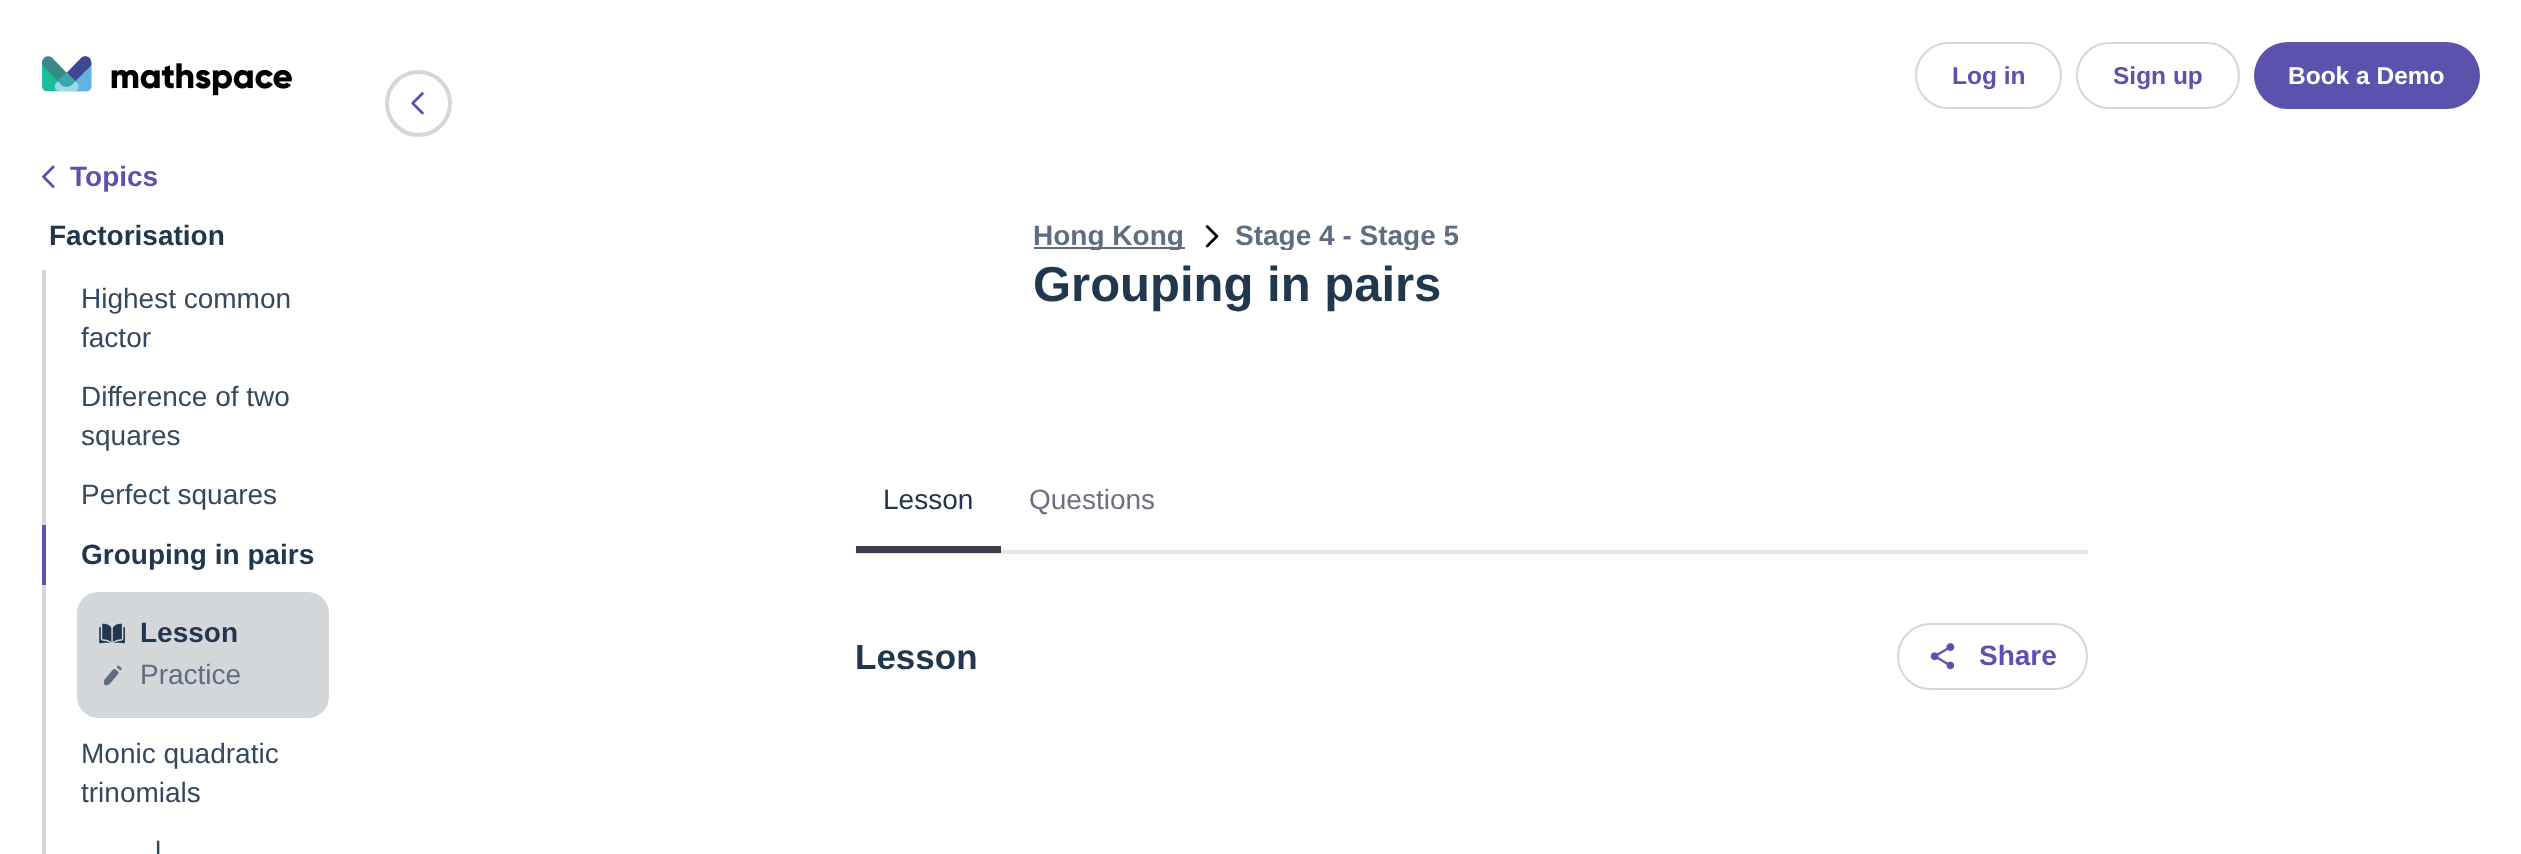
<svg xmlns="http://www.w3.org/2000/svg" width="2521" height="854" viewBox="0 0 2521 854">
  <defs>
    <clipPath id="clip1"><rect x="1034" y="222" width="151" height="28"/></clipPath>
    <clipPath id="clip2"><rect x="1236" y="222" width="224" height="28"/></clipPath>
  </defs>
  <rect width="100%" height="100%" fill="#ffffff"/>
  <image x="42" y="56" width="250" height="40" href="img1.png"/>
  <circle cx="418.5" cy="103.5" r="31.5" fill="none" stroke="#d4d7d9" stroke-width="4"/>
  <image x="411" y="92" width="13" height="23" href="img2.png"/>
  <image x="42" y="165" width="13" height="23" href="img3.png"/>
  <text x="70" y="186" font-family="Liberation Sans" font-size="28" font-weight="bold" fill="#5d51ae">Topics</text>
  <text x="49" y="245" font-family="Liberation Sans" font-size="28" font-weight="bold" fill="#21374d">Factorisation</text>
  <rect x="42" y="270" width="4" height="255" fill="#d4d7d9"/>
  <text x="81" y="308" font-family="Liberation Sans" font-size="28" fill="#34495e">Highest common</text>
  <text x="81" y="347" font-family="Liberation Sans" font-size="28" fill="#34495e">factor</text>
  <text x="81" y="406" font-family="Liberation Sans" font-size="28" fill="#34495e">Dif</text>
  <text x="114" y="406" font-family="Liberation Sans" font-size="28" fill="#34495e">ference of two</text>
  <text x="81" y="445" font-family="Liberation Sans" font-size="28" fill="#34495e">squares</text>
  <text x="81" y="504" font-family="Liberation Sans" font-size="28" fill="#34495e">Perfect squares</text>
  <rect x="42" y="525" width="4" height="60" fill="#5d51ae"/>
  <text x="81" y="564" font-family="Liberation Sans" font-size="28" font-weight="bold" fill="#21374d">Grouping in pairs</text>
  <rect x="42" y="585" width="4" height="269" fill="#d4d7d9"/>
  <rect x="77" y="592" width="252" height="126" rx="21" fill="#d4d7d9"/>
  <image x="99" y="623" width="26" height="21" href="img4.png"/>
  <text x="140" y="642" font-family="Liberation Sans" font-size="28" font-weight="bold" fill="#21374d">Lesson</text>
  <image x="104" y="665" width="18" height="21" href="img5.png"/>
  <text x="140" y="684" font-family="Liberation Sans" font-size="28" fill="#5e6d7f">Practice</text>
  <text x="81" y="763" font-family="Liberation Sans" font-size="28" fill="#34495e">Monic quadratic</text>
  <text x="81" y="802" font-family="Liberation Sans" font-size="28" fill="#34495e">trinomials</text>
  <text x="155" y="861" font-family="Liberation Sans" font-size="28" fill="#34495e">l</text>
  <rect x="1916" y="43" width="145" height="65" rx="32.5" fill="none" stroke="#d4d7d9" stroke-width="2"/>
  <text x="1952" y="84" font-family="Liberation Sans" font-size="24.5" font-weight="bold" fill="#5d51ae">Log in</text>
  <rect x="2077" y="43" width="162" height="65" rx="32.5" fill="none" stroke="#d4d7d9" stroke-width="2"/>
  <text x="2113" y="84" font-family="Liberation Sans" font-size="24.5" font-weight="bold" fill="#5d51ae">Sign up</text>
  <rect x="2254" y="42" width="226" height="67" rx="33.5" fill="#5d51ae"/>
  <text x="2288" y="84" font-family="Liberation Sans" font-size="24.5" font-weight="bold" fill="#ffffff">Book a Demo</text>
  <rect x="1034" y="247" width="151" height="2" fill="#5e6d7f"/>
  <g clip-path="url(#clip1)">
    <text x="1033" y="245" font-family="Liberation Sans" font-size="28" font-weight="bold" fill="#5e6d7f">Hong Kong</text>
  </g>
  <image x="1205" y="225" width="14" height="23" href="img6.png"/>
  <g clip-path="url(#clip2)">
    <text x="1235" y="245" font-family="Liberation Sans" font-size="28" font-weight="bold" fill="#5e6d7f">Stage 4 - Stage 5</text>
  </g>
  <text x="1033" y="301" font-family="Liberation Sans" font-size="49" font-weight="bold" fill="#21374d">Grouping in pairs</text>
  <rect x="856" y="550" width="1232" height="4" fill="#e5e6e8"/>
  <rect x="856" y="546" width="145" height="7" fill="#3e3e4c"/>
  <text x="883" y="509" font-family="Liberation Sans" font-size="28" fill="#21374d">Lesson</text>
  <text x="1029" y="509" font-family="Liberation Sans" font-size="28" fill="#6f6f82">Questions</text>
  <text x="855" y="669" font-family="Liberation Sans" font-size="35" font-weight="bold" fill="#21374d">Lesson</text>
  <rect x="1898" y="624" width="189" height="65" rx="32.5" fill="none" stroke="#d4d7d9" stroke-width="2"/>
  <image x="1930" y="643" width="25" height="27" href="img7.png"/>
  <text x="1979" y="665" font-family="Liberation Sans" font-size="28" font-weight="bold" fill="#5d51ae">Share</text>
</svg>
